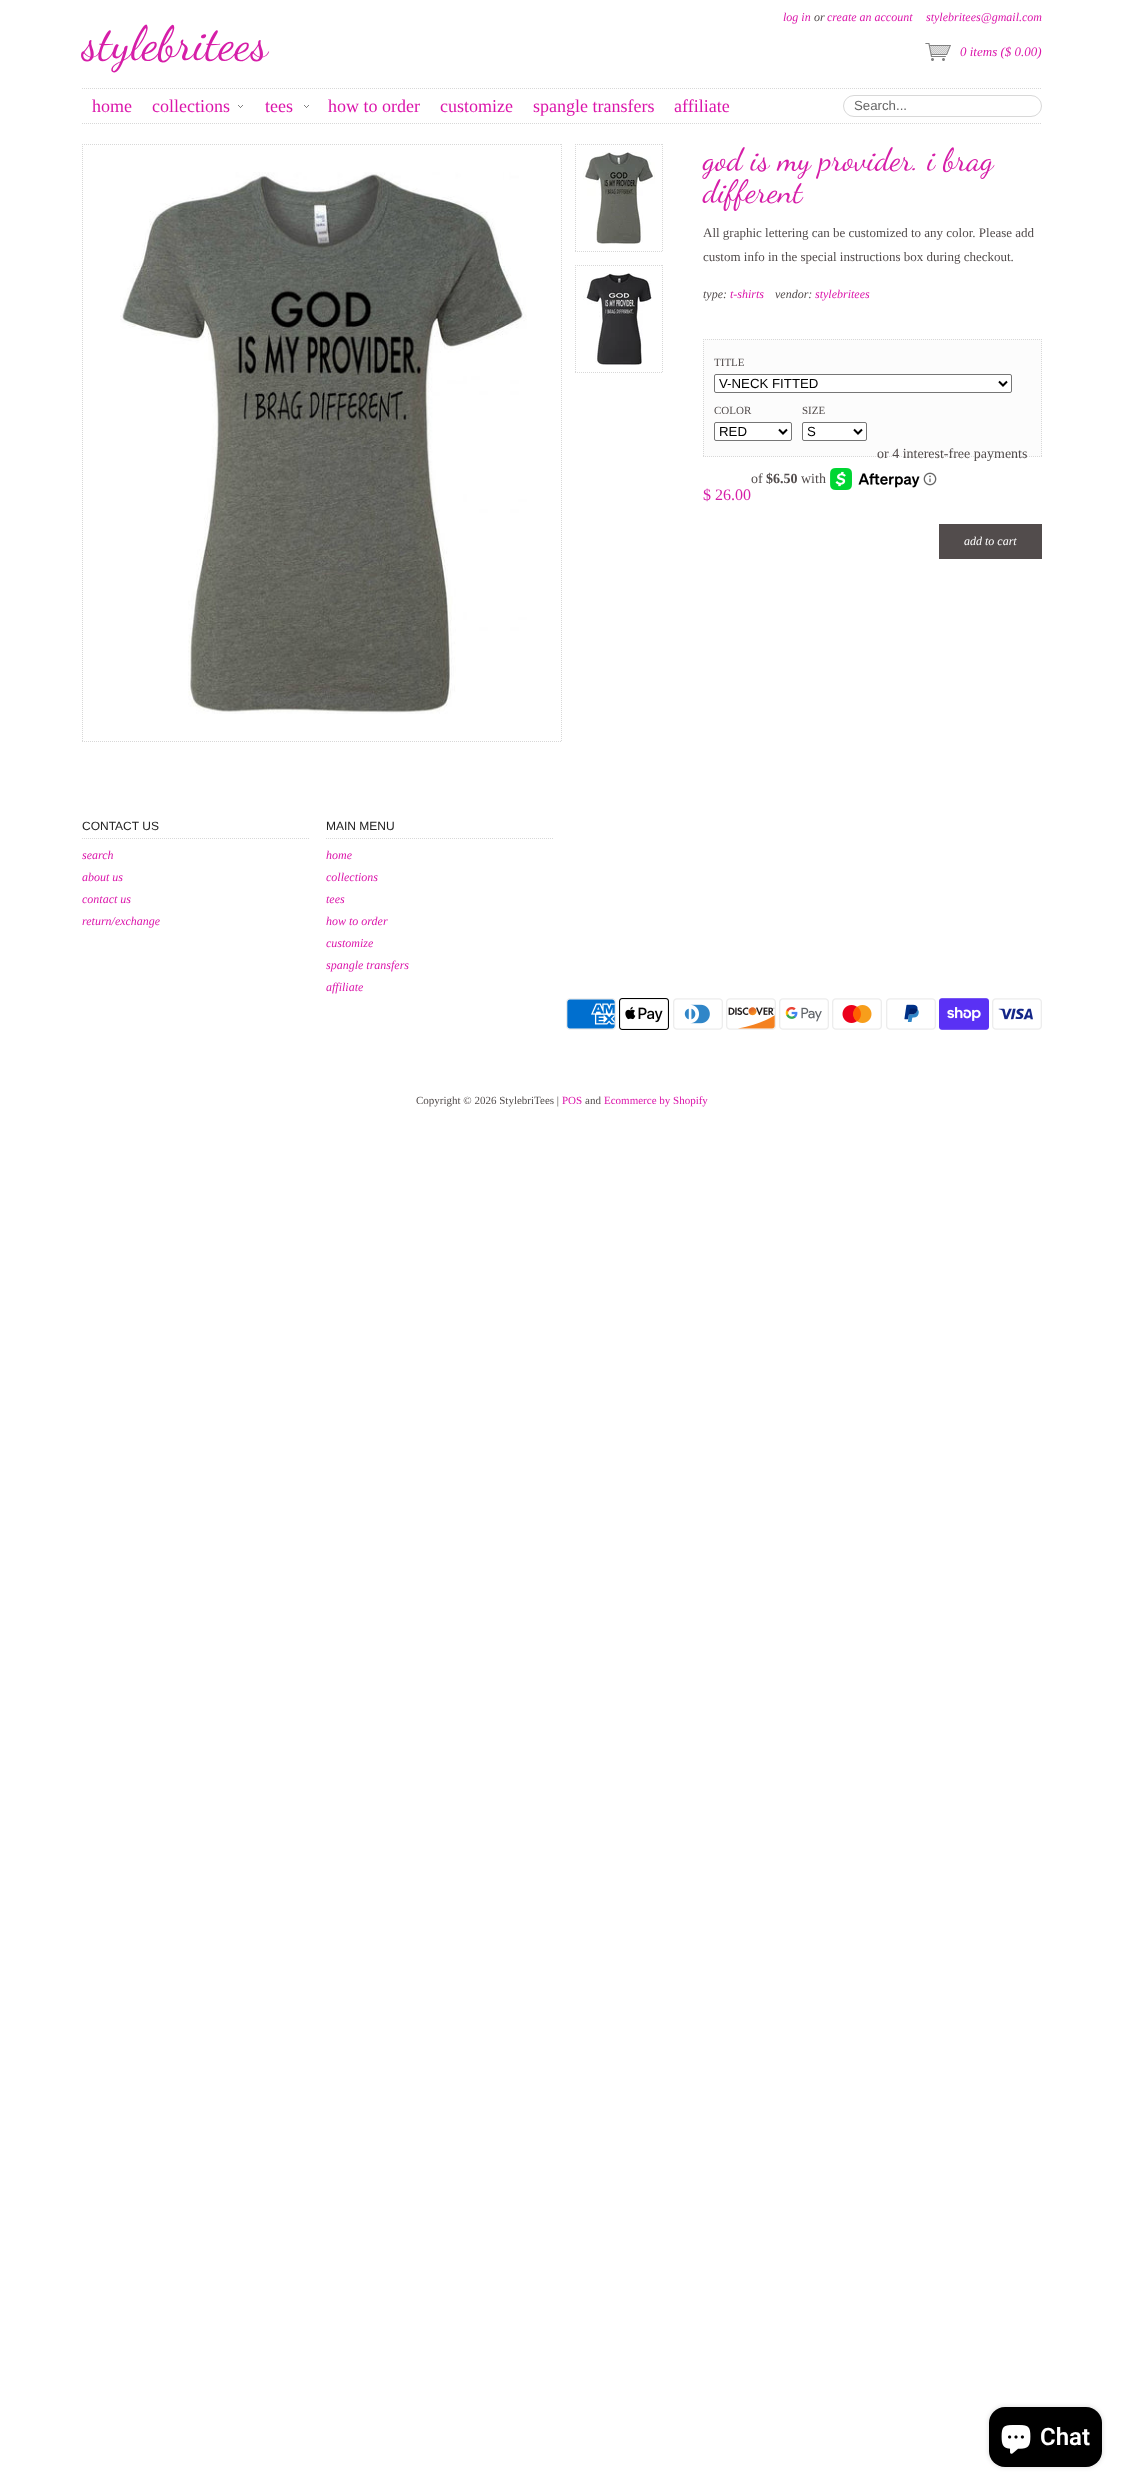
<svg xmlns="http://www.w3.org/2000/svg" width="1124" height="2488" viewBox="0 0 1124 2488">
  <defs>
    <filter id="blur1" x="-50%" y="-200%" width="200%" height="500%"><feGaussianBlur stdDeviation="2.5"/></filter>
  </defs>
  <rect width="100%" height="100%" fill="#ffffff"/>
  <text x="783" y="21" font-family="Liberation Serif" font-size="12" font-style="italic" fill="#db15aa">log in</text>
  <text x="814" y="21" font-family="Liberation Serif" font-size="12" font-style="italic" fill="#524c4c">or</text>
  <text x="827" y="21" font-family="Liberation Serif" font-size="12" font-style="italic" fill="#db15aa">create an account</text>
  <text x="926" y="21" font-family="Liberation Serif" font-size="12" font-style="italic" fill="#db15aa">stylebritees@gmail.com</text>
  <text x="82" y="59" font-family="Dancing Script" font-size="48" fill="#d61ea8">stylebritees</text>
  <image x="925" y="43" width="26" height="18" href="img1.png"/>
  <text x="960" y="56" font-family="Liberation Serif" font-size="13" font-style="italic" fill="#db15aa">0 items ($ 0.00)</text>
  <path d="M82 88.5H1042" fill="none" stroke="#d8d8d8" stroke-dasharray="1 1"/>
  <path d="M82 123.5H1042" fill="none" stroke="#d8d8d8" stroke-dasharray="1 1"/>
  <text x="92" y="112" font-family="Liberation Serif" font-size="18" fill="#db15aa">home</text>
  <image x="238" y="105" width="5" height="3" href="img2.png"/>
  <text x="152" y="112" font-family="Liberation Serif" font-size="18" fill="#db15aa">collections</text>
  <image x="304" y="105" width="5" height="3" href="img2.png"/>
  <text x="265" y="112" font-family="Liberation Serif" font-size="18" fill="#db15aa">tees</text>
  <text x="328" y="112" font-family="Liberation Serif" font-size="18" fill="#db15aa">how to order</text>
  <text x="440" y="112" font-family="Liberation Serif" font-size="18" fill="#db15aa">customize</text>
  <text x="533" y="112" font-family="Liberation Serif" font-size="18" fill="#db15aa">spangle transfers</text>
  <text x="674" y="112" font-family="Liberation Serif" font-size="18" fill="#db15aa">affiliate</text>
  <rect x="843.5" y="95.5" width="198" height="21" rx="10.5" fill="none" stroke="#d8d8d8"/>
  <text x="854" y="110" font-family="Liberation Sans" font-size="13.25" fill="#666666">Search...</text>
  <path d="M82 144.5H562" fill="none" stroke="#d8d8d8" stroke-dasharray="1 1"/>
  <path d="M561.5 144V742" fill="none" stroke="#d8d8d8" stroke-dasharray="1 1"/>
  <path d="M82 741.5H562" fill="none" stroke="#d8d8d8" stroke-dasharray="1 1"/>
  <path d="M82.5 144V742" fill="none" stroke="#d8d8d8" stroke-dasharray="1 1"/>
  <image x="120" y="172" width="407" height="542" href="img3.png"/>
  <path d="M575 144.5H663" fill="none" stroke="#d8d8d8" stroke-dasharray="1 1"/>
  <path d="M662.5 144V252" fill="none" stroke="#d8d8d8" stroke-dasharray="1 1"/>
  <path d="M575 251.5H663" fill="none" stroke="#d8d8d8" stroke-dasharray="1 1"/>
  <path d="M575.5 144V252" fill="none" stroke="#d8d8d8" stroke-dasharray="1 1"/>
  <image x="583" y="152" width="72" height="92" href="img4.png"/>
  <path d="M575 265.5H663" fill="none" stroke="#d8d8d8" stroke-dasharray="1 1"/>
  <path d="M662.5 265V373" fill="none" stroke="#d8d8d8" stroke-dasharray="1 1"/>
  <path d="M575 372.5H663" fill="none" stroke="#d8d8d8" stroke-dasharray="1 1"/>
  <path d="M575.5 265V373" fill="none" stroke="#d8d8d8" stroke-dasharray="1 1"/>
  <image x="583" y="273" width="69" height="92" href="img5.png"/>
  <text x="703" y="170" font-family="Dancing Script" font-size="32" fill="#d61ea8">god is my provider. i brag</text>
  <text x="703" y="202" font-family="Dancing Script" font-size="32" fill="#d61ea8">different</text>
  <text x="703" y="237" font-family="Liberation Serif" font-size="13" fill="#524c4c">All graphic lettering can be customized to any color. Please add</text>
  <text x="703" y="261" font-family="Liberation Serif" font-size="13" fill="#524c4c">custom info in the special instructions box during checkout.</text>
  <text x="703" y="298" font-family="Liberation Serif" font-size="12" font-style="italic" fill="#524c4c">type:</text>
  <text x="730" y="298" font-family="Liberation Serif" font-size="12" font-style="italic" fill="#db15aa">t-shirts</text>
  <text x="775" y="298" font-family="Liberation Serif" font-size="12" font-style="italic" fill="#524c4c">vendor:</text>
  <text x="815" y="298" font-family="Liberation Serif" font-size="12" font-style="italic" fill="#db15aa">stylebritees</text>
  <rect x="703" y="339" width="339" height="118" fill="#fcfcfc"/>
  <path d="M703 339.5H1042" fill="none" stroke="#d8d8d8" stroke-dasharray="1 1"/>
  <path d="M1041.5 339V457" fill="none" stroke="#d8d8d8" stroke-dasharray="1 1"/>
  <path d="M703 456.5H1042" fill="none" stroke="#d8d8d8" stroke-dasharray="1 1"/>
  <path d="M703.5 339V457" fill="none" stroke="#d8d8d8" stroke-dasharray="1 1"/>
  <text x="714" y="366" font-family="Liberation Serif" font-size="11" fill="#524c4c">TITLE</text>
  <rect x="714.5" y="374.5" width="297" height="18" rx="1.5" fill="#ffffff" stroke="#767676"/>
  <path d="M999 381.5L1003 385.5L1007 381.5" fill="none" stroke="#000000" stroke-width="2"/>
  <text x="719" y="388" font-family="Liberation Sans" font-size="13.25" fill="#000000">V-NECK FITTED</text>
  <text x="714" y="414" font-family="Liberation Serif" font-size="11" fill="#524c4c">COLOR</text>
  <rect x="714.5" y="422.5" width="77" height="18" rx="1.5" fill="#ffffff" stroke="#767676"/>
  <path d="M779 429.5L783 433.5L787 429.5" fill="none" stroke="#000000" stroke-width="2"/>
  <text x="719" y="436" font-family="Liberation Sans" font-size="13.25" fill="#000000">RED</text>
  <text x="802" y="414" font-family="Liberation Serif" font-size="11" fill="#524c4c">SIZE</text>
  <rect x="802.5" y="422.5" width="64" height="18" rx="1.5" fill="#ffffff" stroke="#767676"/>
  <path d="M854 429.5L858 433.5L862 429.5" fill="none" stroke="#000000" stroke-width="2"/>
  <text x="807" y="436" font-family="Liberation Sans" font-size="13.25" fill="#000000">S</text>
  <text x="877" y="458" font-family="Liberation Serif" font-size="14" fill="#524c4c">or 4 interest-free payments</text>
  <text x="751" y="483" font-family="Liberation Serif" font-size="14" fill="#524c4c">of</text>
  <text x="766" y="483" font-family="Liberation Serif" font-size="14" font-weight="bold" fill="#524c4c">$6.50</text>
  <text x="801" y="483" font-family="Liberation Serif" font-size="14" fill="#524c4c">with</text>
  <image x="830" y="468" width="90" height="22" href="img6.png"/>
  <image x="923" y="472" width="14" height="14" href="img7.png"/>
  <text x="703" y="500" font-family="Liberation Serif" font-size="16" fill="#d61ea8">$ 26.00</text>
  <rect x="939" y="524" width="103" height="35" fill="#524c4c"/>
  <text x="964" y="545" font-family="Liberation Serif" font-size="12" font-style="italic" fill="#ffffff">add to cart</text>
  <path d="M82 838.5H310" fill="none" stroke="#d8d8d8" stroke-dasharray="1 1"/>
  <text x="82" y="830" font-family="Liberation Sans" font-size="12" fill="#222222">CONTACT US</text>
  <text x="82" y="859" font-family="Liberation Serif" font-size="12" font-style="italic" fill="#db15aa">search</text>
  <text x="82" y="881" font-family="Liberation Serif" font-size="12" font-style="italic" fill="#db15aa">about us</text>
  <text x="82" y="903" font-family="Liberation Serif" font-size="12" font-style="italic" fill="#db15aa">contact us</text>
  <text x="82" y="925" font-family="Liberation Serif" font-size="12" font-style="italic" fill="#db15aa">return/exchange</text>
  <path d="M326 838.5H554" fill="none" stroke="#d8d8d8" stroke-dasharray="1 1"/>
  <text x="326" y="830" font-family="Liberation Sans" font-size="12" fill="#222222">MAIN MENU</text>
  <text x="326" y="859" font-family="Liberation Serif" font-size="12" font-style="italic" fill="#db15aa">home</text>
  <text x="326" y="881" font-family="Liberation Serif" font-size="12" font-style="italic" fill="#db15aa">collections</text>
  <text x="326" y="903" font-family="Liberation Serif" font-size="12" font-style="italic" fill="#db15aa">tees</text>
  <text x="326" y="925" font-family="Liberation Serif" font-size="12" font-style="italic" fill="#db15aa">how to order</text>
  <text x="326" y="947" font-family="Liberation Serif" font-size="12" font-style="italic" fill="#db15aa">customize</text>
  <text x="326" y="969" font-family="Liberation Serif" font-size="12" font-style="italic" fill="#db15aa">spangle transfers</text>
  <text x="326" y="991" font-family="Liberation Serif" font-size="12" font-style="italic" fill="#db15aa">affiliate</text>
  <image x="566" y="998" width="50" height="32" href="img8.png"/>
  <image x="619" y="998" width="50" height="32" href="img9.png"/>
  <image x="673" y="998" width="50" height="32" href="img10.png"/>
  <image x="726" y="998" width="50" height="32" href="img11.png"/>
  <image x="779" y="998" width="50" height="32" href="img12.png"/>
  <image x="832" y="998" width="50" height="32" href="img13.png"/>
  <image x="886" y="998" width="50" height="32" href="img14.png"/>
  <image x="939" y="998" width="50" height="32" href="img15.png"/>
  <image x="992" y="998" width="50" height="32" href="img16.png"/>
  <text x="416" y="1104" font-family="Liberation Serif" font-size="11" fill="#524c4c">Copyright © 2026 StylebriTees |</text>
  <text x="562" y="1104" font-family="Liberation Serif" font-size="11" fill="#db15aa">POS</text>
  <text x="585" y="1104" font-family="Liberation Serif" font-size="11" fill="#524c4c">and</text>
  <text x="604" y="1104" font-family="Liberation Serif" font-size="11" fill="#db15aa">Ecommerce by Shopify</text>
  <rect x="989" y="2407" width="113" height="60" rx="16" fill="#000000" fill-opacity="0.15" filter="url(#blur1)"/>
  <rect x="989" y="2407" width="113" height="60" rx="16" fill="#000000"/>
  <image x="1001" y="2425" width="30" height="29" href="img17.png"/>
  <text x="1040" y="2445" font-family="Roboto" font-size="24" font-weight="600" fill="#ffffff">Chat</text>
</svg>
